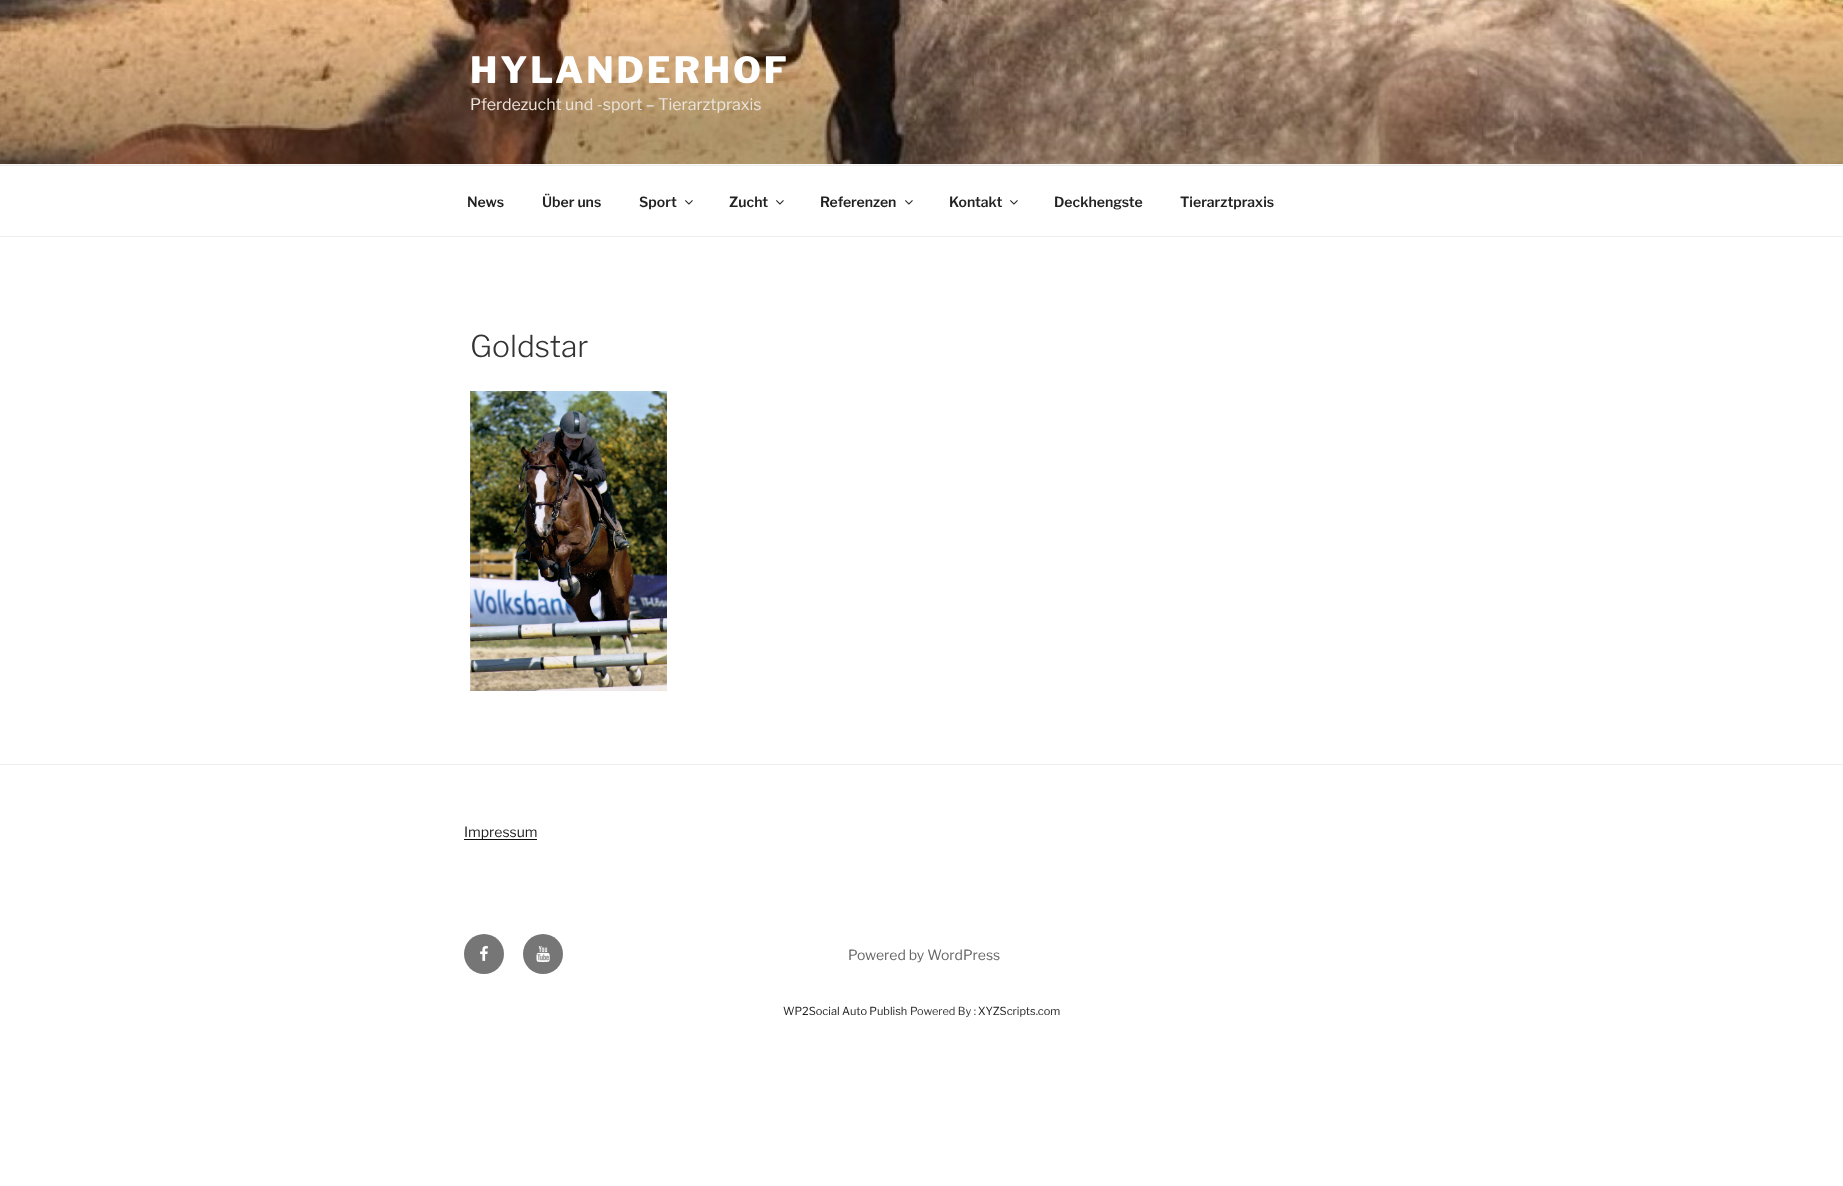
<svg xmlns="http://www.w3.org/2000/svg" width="1843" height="1186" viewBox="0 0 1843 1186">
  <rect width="100%" height="100%" fill="#ffffff"/>
  <rect x="0" y="164" width="1843" height="1" fill="#fafafa"/>
  <image x="0" y="0" width="1843" height="164" href="img1.png"/>
  <text x="470" y="83" font-family="Libre Franklin" font-size="36" font-weight="800" letter-spacing="2.9" fill="#ffffff">HYLANDERHOF</text>
  <text x="470" y="110" font-family="Libre Franklin" font-size="16" fill="#eae4dd">Pferdezucht und -sport – Tierarztpraxis</text>
  <rect x="0" y="165" width="1843" height="1" fill="#eeeeee"/>
  <rect x="0" y="236" width="1843" height="1" fill="#eeeeee"/>
  <text x="467" y="207" font-family="Libre Franklin" font-size="14" font-weight="600" fill="#222222">News</text>
  <text x="542" y="207" font-family="Libre Franklin" font-size="14" font-weight="600" fill="#222222">Über uns</text>
  <text x="639" y="207" font-family="Libre Franklin" font-size="14" font-weight="600" fill="#222222">Sport</text>
  <image x="685" y="200" width="8" height="5" href="img2.png"/>
  <text x="729" y="207" font-family="Libre Franklin" font-size="14" font-weight="600" fill="#222222">Zucht</text>
  <image x="776" y="200" width="8" height="5" href="img2.png"/>
  <text x="820" y="207" font-family="Libre Franklin" font-size="14" font-weight="600" fill="#222222">Referenzen</text>
  <image x="905" y="200" width="8" height="5" href="img2.png"/>
  <text x="949" y="207" font-family="Libre Franklin" font-size="14" font-weight="600" fill="#222222">Kontakt</text>
  <image x="1010" y="200" width="8" height="5" href="img2.png"/>
  <text x="1054" y="207" font-family="Libre Franklin" font-size="14" font-weight="600" fill="#222222">Deckhengste</text>
  <text x="1180" y="207" font-family="Libre Franklin" font-size="14" font-weight="600" fill="#222222">Tierarztpraxis</text>
  <text x="470" y="357" font-family="Libre Franklin" font-size="30" font-weight="300" fill="#333333">Goldstar</text>
  <image x="470" y="391" width="197" height="300" href="img3.png"/>
  <rect x="0" y="764" width="1843" height="1" fill="#eeeeee"/>
  <rect x="464" y="839" width="73" height="1" fill="#0f0f0f"/>
  <text x="464" y="837" font-family="Libre Franklin" font-size="14" fill="#222222">Impressum</text>
  <circle cx="484" cy="954" r="20" fill="#767676"/>
  <image x="480" y="946" width="8" height="15" href="img4.png"/>
  <circle cx="543" cy="954" r="20" fill="#767676"/>
  <image x="536" y="946" width="14" height="16" href="img5.png"/>
  <text x="848" y="960" font-family="Libre Franklin" font-size="14" fill="#666666">Powered by WordPress</text>
  <text x="783" y="1015" font-family="Libre Franklin" font-size="11" fill="#222222">WP2Social Auto Publish</text>
  <text x="910" y="1015" font-family="Libre Franklin" font-size="11" fill="#333333">Powered By :</text>
  <text x="978" y="1015" font-family="Libre Franklin" font-size="11" fill="#222222">XYZScripts.com</text>
</svg>
